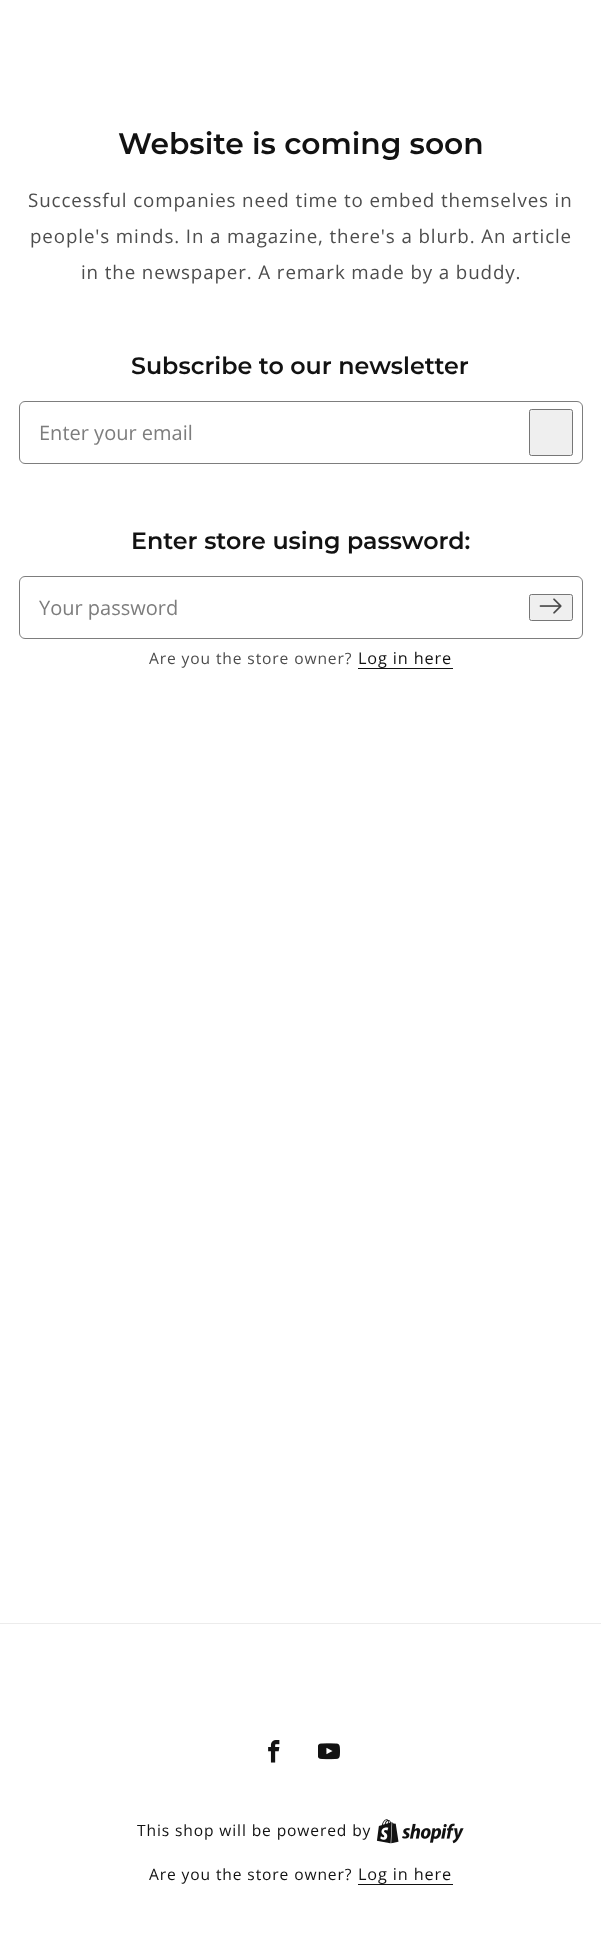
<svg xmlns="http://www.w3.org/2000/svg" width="601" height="1940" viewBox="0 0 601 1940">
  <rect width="100%" height="100%" fill="#ffffff"/>
  <text x="118" y="154" font-family="Montserrat" font-size="29.75" font-weight="600" fill="#121212">Website is coming soon</text>
  <text x="28" y="207" font-family="Open Sans" font-size="18.75" letter-spacing="0.88" fill="#4d4d4d">Successful companies need time to embed themselves in</text>
  <text x="30" y="243" font-family="Open Sans" font-size="18.75" letter-spacing="0.88" fill="#4d4d4d">people's minds. In a magazine, there's a blurb. An article</text>
  <text x="81" y="279" font-family="Open Sans" font-size="18.75" letter-spacing="0.88" fill="#4d4d4d">in the newspaper. A remark made by a buddy.</text>
  <text x="131" y="374" font-family="Montserrat" font-size="23.75" font-weight="600" fill="#121212">Subscribe to our newsletter</text>
  <rect x="19.5" y="401.5" width="563" height="62" rx="5.5" fill="none" stroke="#7d7d7d"/>
  <text x="39" y="440" font-family="Open Sans" font-size="20" fill="#7d7d7d">Enter your email</text>
  <rect x="529.5" y="409.5" width="43" height="46" rx="2" fill="#efefef" stroke="#767676"/>
  <text x="131" y="549" font-family="Montserrat" font-size="23.75" font-weight="600" fill="#121212">Enter store using password:</text>
  <rect x="19.5" y="576.5" width="563" height="62" rx="5.5" fill="none" stroke="#7d7d7d"/>
  <text x="39" y="615" font-family="Open Sans" font-size="20" fill="#7d7d7d">Your password</text>
  <rect x="529.5" y="594.5" width="43" height="26" rx="2" fill="#efefef" stroke="#767676"/>
  <image x="539" y="598" width="23" height="16" href="img1.png"/>
  <text x="149" y="664" font-family="Open Sans" font-size="15.6" letter-spacing="0.88" fill="#4d4d4d">Are you the store owner?</text>
  <text x="358" y="664" font-family="Open Sans" font-size="16.25" letter-spacing="0.88" fill="#121212">Log in here</text>
  <rect x="358" y="668" width="95" height="1" fill="#121212"/>
  <rect x="0" y="1623" width="601" height="1" fill="#ececec"/>
  <image x="268" y="1740" width="12" height="23" href="img2.png"/>
  <image x="318" y="1743" width="22" height="17" href="img3.png"/>
  <text x="137" y="1836" font-family="Open Sans" font-size="15.6" letter-spacing="0.88" fill="#121212">This shop will be powered by</text>
  <image x="376" y="1819" width="88" height="25" href="img4.png"/>
  <text x="149" y="1880" font-family="Open Sans" font-size="15.6" letter-spacing="0.88" fill="#121212">Are you the store owner?</text>
  <text x="358" y="1880" font-family="Open Sans" font-size="16.25" letter-spacing="0.88" fill="#121212">Log in here</text>
  <rect x="358" y="1884" width="95" height="1" fill="#121212"/>
</svg>
